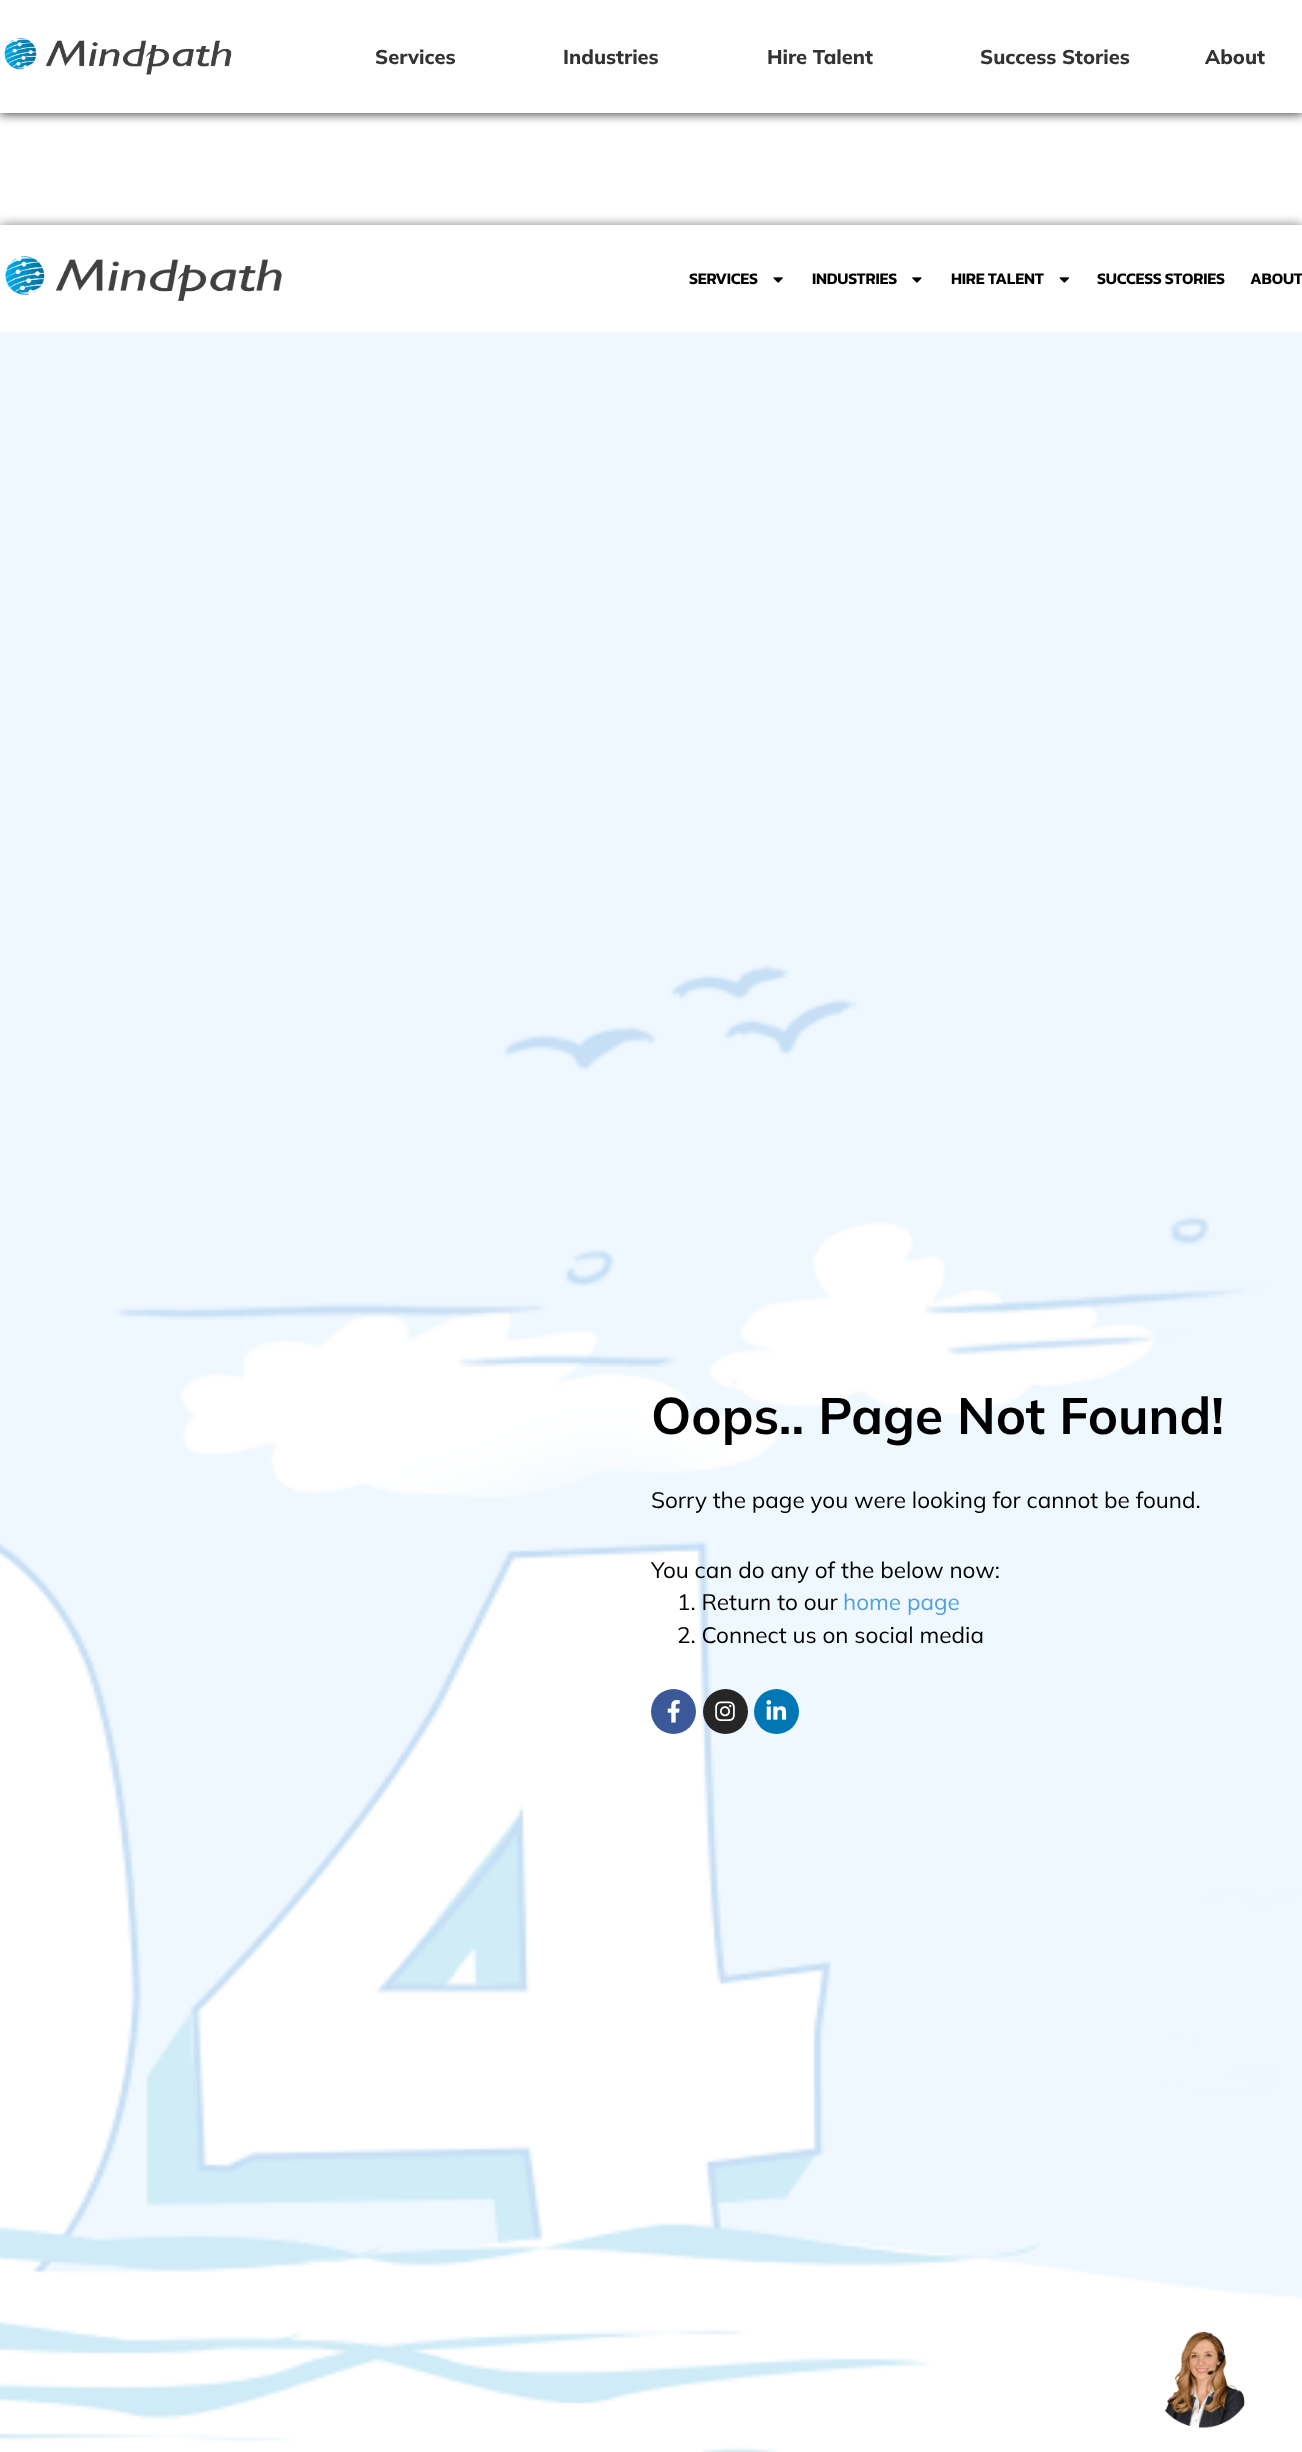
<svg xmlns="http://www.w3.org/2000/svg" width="1302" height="2452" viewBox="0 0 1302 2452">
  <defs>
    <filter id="blur1" x="-50%" y="-200%" width="200%" height="500%"><feGaussianBlur stdDeviation="6"/></filter>
  </defs>
  <rect width="100%" height="100%" fill="#ffffff"/>
  <rect x="0" y="0" width="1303" height="113" fill="#000000" fill-opacity="0.5" filter="url(#blur1)"/>
  <rect x="0" y="0" width="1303" height="113" fill="#000000" fill-opacity="0.5" filter="url(#blur1)"/>
  <rect x="0" y="0" width="1302" height="113" fill="#ffffff"/>
  <image x="4" y="38" width="228" height="37" href="img1.png"/>
  <text x="375" y="64" font-family="Mulish" font-size="20" font-weight="800" fill="#333333">Services</text>
  <text x="563" y="64" font-family="Mulish" font-size="20" font-weight="800" fill="#333333">Industries</text>
  <text x="767" y="64" font-family="Mulish" font-size="20" font-weight="800" fill="#333333">Hire Talent</text>
  <text x="980" y="64" font-family="Mulish" font-size="20" font-weight="800" fill="#333333">Success Stories</text>
  <text x="1205" y="64" font-family="Mulish" font-size="20" font-weight="800" fill="#333333">About</text>
  <rect x="0" y="225" width="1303" height="108" fill="#000000" fill-opacity="0.5" filter="url(#blur1)"/>
  <rect x="0" y="225" width="1302" height="108" fill="#ffffff"/>
  <image x="5" y="256" width="277" height="45" href="img2.png"/>
  <text x="689" y="284" font-family="Kanit" font-size="16.25" font-weight="600" letter-spacing="-0.25" fill="#000000">SERVICES</text>
  <image x="773" y="277" width="10" height="6" href="img3.png"/>
  <text x="812" y="284" font-family="Kanit" font-size="16.25" font-weight="600" letter-spacing="-0.25" fill="#000000">INDUSTRIES</text>
  <image x="912" y="277" width="10" height="6" href="img4.png"/>
  <text x="951" y="284" font-family="Kanit" font-size="16.25" font-weight="600" letter-spacing="-0.25" fill="#000000">HIRE TALENT</text>
  <image x="1059" y="277" width="10" height="6" href="img5.png"/>
  <text x="1097" y="284" font-family="Kanit" font-size="16.25" font-weight="600" letter-spacing="-0.25" fill="#000000">SUCCESS STORIES</text>
  <text x="1250" y="284" font-family="Kanit" font-size="16.25" font-weight="600" letter-spacing="-0.25" fill="#000000">ABOUT</text>
  <image x="0" y="332" width="1302" height="2120" href="img6.png"/>
  <text x="651" y="1434" font-family="Mulish" font-size="51.25" font-weight="bold" fill="#000000">Oops.. Page Not Found!</text>
  <text x="651" y="1508" font-family="Mulish" font-size="22.5" fill="#000000">Sorry the page you were looking for cannot be found.</text>
  <text x="651" y="1578" font-family="Mulish" font-size="22.5" fill="#000000">You can do any of the below now:</text>
  <text x="677" y="1610" font-family="Mulish" font-size="22.5" fill="#000000">1. Return to our</text>
  <text x="843" y="1610" font-family="Mulish" font-size="22.5" fill="#53a1d9">home page</text>
  <text x="677" y="1643" font-family="Mulish" font-size="22.5" fill="#000000">2. Connect us on social media</text>
  <circle cx="673.5" cy="1711.5" r="22.5" fill="#3b5998"/>
  <image x="667" y="1700" width="13" height="23" href="img7.png"/>
  <circle cx="725.5" cy="1711.5" r="22.5" fill="#262626"/>
  <image x="715" y="1701" width="20" height="20" href="img8.png"/>
  <circle cx="776.5" cy="1711.5" r="22.5" fill="#0077b5"/>
  <image x="766" y="1700" width="21" height="20" href="img9.png"/>
  <image x="1164" y="2331" width="81" height="97" href="img10.png"/>
</svg>
